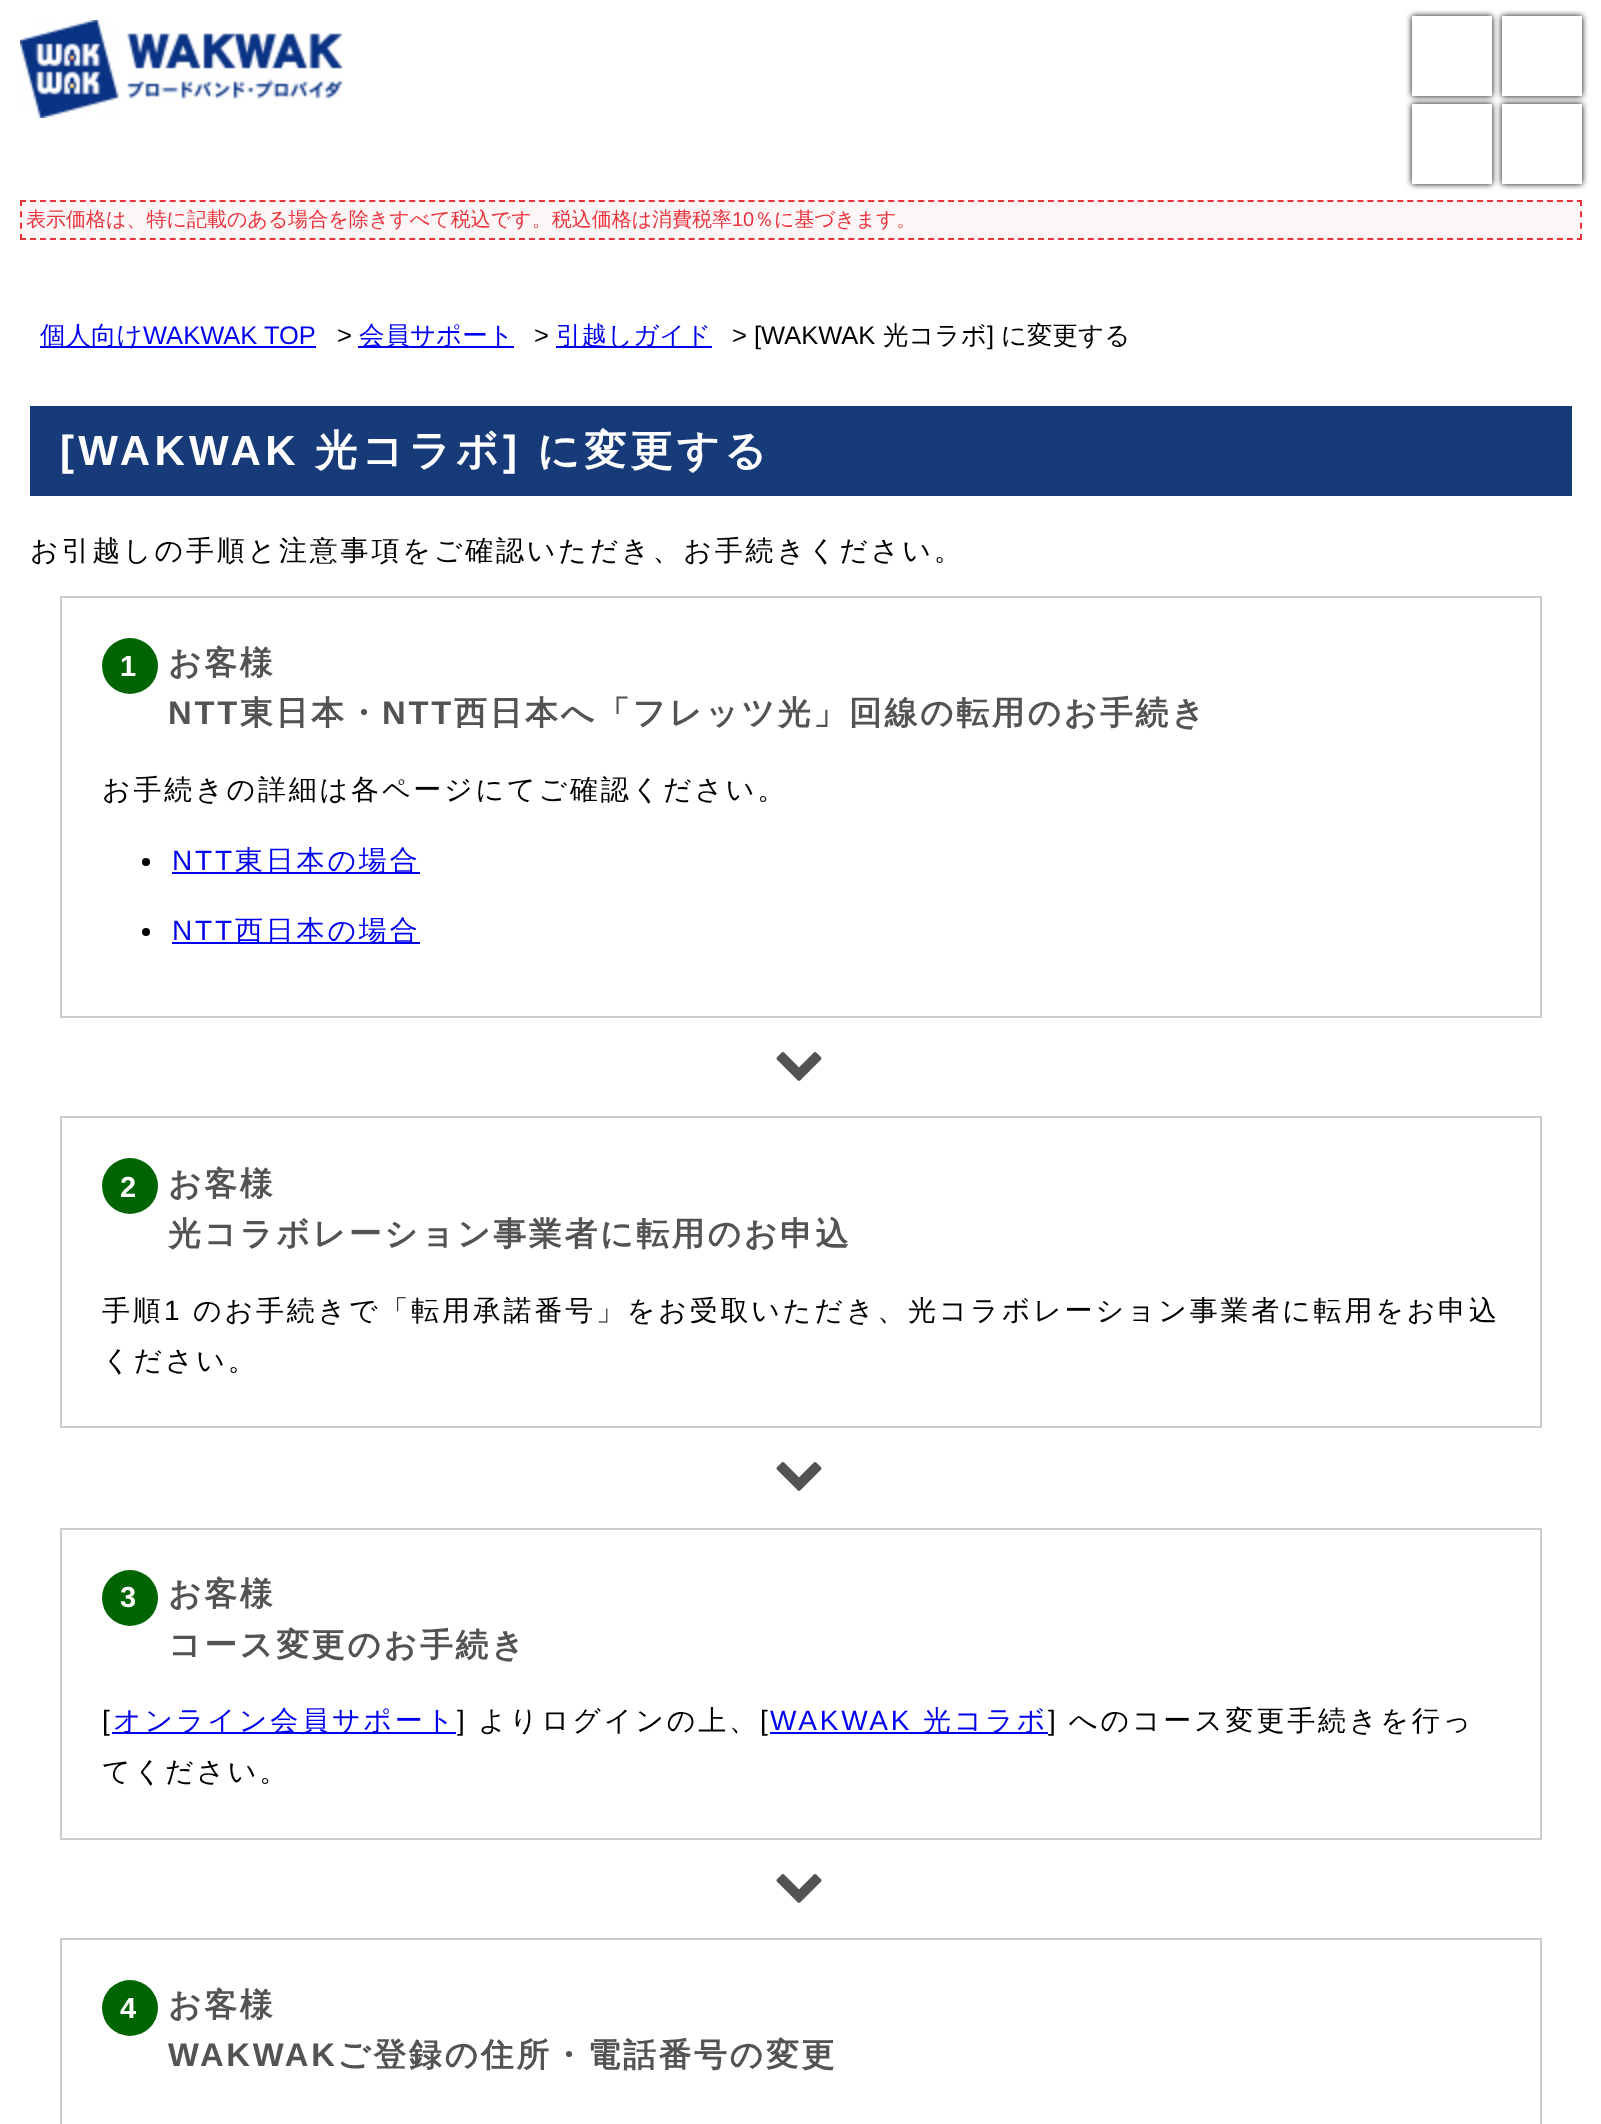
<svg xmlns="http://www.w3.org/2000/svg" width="1601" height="2124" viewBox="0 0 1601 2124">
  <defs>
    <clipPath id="clip1"><path d="M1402 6H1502V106H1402ZM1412 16H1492V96H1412Z" clip-rule="evenodd"/></clipPath>
    <filter id="blur1" x="-50%" y="-200%" width="200%" height="500%"><feGaussianBlur stdDeviation="3"/></filter>
    <clipPath id="clip2"><path d="M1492 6H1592V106H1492ZM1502 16H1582V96H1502Z" clip-rule="evenodd"/></clipPath>
    <clipPath id="clip3"><path d="M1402 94H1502V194H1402ZM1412 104H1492V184H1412Z" clip-rule="evenodd"/></clipPath>
    <clipPath id="clip4"><path d="M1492 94H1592V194H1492ZM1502 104H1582V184H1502Z" clip-rule="evenodd"/></clipPath>
  </defs>
  <rect width="100%" height="100%" fill="#ffffff"/>
  <image x="20" y="20" width="322" height="98" href="img1.png"/>
  <g clip-path="url(#clip1)">
    <rect x="1412" y="16" width="80" height="80" fill="#000000" filter="url(#blur1)"/>
  </g>
  <g clip-path="url(#clip2)">
    <rect x="1502" y="16" width="80" height="80" fill="#000000" filter="url(#blur1)"/>
  </g>
  <g clip-path="url(#clip3)">
    <rect x="1412" y="104" width="80" height="80" fill="#000000" filter="url(#blur1)"/>
  </g>
  <g clip-path="url(#clip4)">
    <rect x="1502" y="104" width="80" height="80" fill="#000000" filter="url(#blur1)"/>
  </g>
  <rect x="20" y="200" width="1562" height="40" fill="#fdf6f6"/>
  <path d="M20 201H1582" fill="none" stroke="#ea333d" stroke-width="2" stroke-dasharray="6 3.98"/>
  <path d="M1581 200V240" fill="none" stroke="#ea333d" stroke-width="2" stroke-dasharray="6 5.34"/>
  <path d="M20 239H1582" fill="none" stroke="#ea333d" stroke-width="2" stroke-dasharray="6 3.98"/>
  <path d="M21 200V240" fill="none" stroke="#ea333d" stroke-width="2" stroke-dasharray="6 5.34"/>
  <text x="26" y="226" font-family="WenQuanYi Zen Hei" font-size="20" font-weight="500" fill="#ea333d">表示価格は、特に記載のある場合を除きすべて税込です。税込価格は消費税率</text>
  <text x="732" y="226" font-family="Liberation Sans" font-size="20" fill="#ea333d">10</text>
  <text x="754" y="226" font-family="WenQuanYi Zen Hei" font-size="20" font-weight="500" fill="#ea333d">％に基づきます。</text>
  <rect x="40" y="346" width="276" height="2" fill="#0000ee"/>
  <text x="40" y="344" font-family="WenQuanYi Zen Hei" font-size="25.5" font-weight="500" fill="#0000ee">個人向け</text>
  <text x="143" y="344" font-family="Liberation Sans" font-size="25.5" fill="#0000ee">WAKWAK TOP</text>
  <text x="337" y="344" font-family="Liberation Sans" font-size="25.5" fill="#000000">&gt;</text>
  <rect x="358" y="346" width="156" height="2" fill="#0000ee"/>
  <text x="359" y="344" font-family="WenQuanYi Zen Hei" font-size="25.5" font-weight="500" fill="#0000ee">会員サポート</text>
  <text x="534" y="344" font-family="Liberation Sans" font-size="25.5" fill="#000000">&gt;</text>
  <rect x="556" y="346" width="156" height="2" fill="#0000ee"/>
  <text x="556" y="344" font-family="WenQuanYi Zen Hei" font-size="25.5" font-weight="500" fill="#0000ee">引越しガイド</text>
  <text x="732" y="344" font-family="Liberation Sans" font-size="25.5" fill="#000000">&gt; [WAKWAK</text>
  <text x="883" y="344" font-family="WenQuanYi Zen Hei" font-size="25.5" font-weight="500" fill="#000000">光コラボ</text>
  <text x="987" y="344" font-family="Liberation Sans" font-size="25.5" fill="#000000">]</text>
  <text x="1001" y="344" font-family="WenQuanYi Zen Hei" font-size="25.5" font-weight="500" fill="#000000">に変更する</text>
  <rect x="30" y="406" width="1542" height="90" fill="#173a79"/>
  <text x="60" y="465" font-family="Liberation Sans" font-size="42" font-weight="bold" letter-spacing="4.25" fill="#ffffff">[WAKWAK</text>
  <text x="315" y="465" font-family="WenQuanYi Zen Hei" font-size="42" font-weight="bold" letter-spacing="4.25" fill="#ffffff">光コラボ</text>
  <text x="503" y="465" font-family="Liberation Sans" font-size="42" font-weight="bold" letter-spacing="4.25" fill="#ffffff">]</text>
  <text x="537" y="465" font-family="WenQuanYi Zen Hei" font-size="42" font-weight="bold" letter-spacing="4.25" fill="#ffffff">に変更する</text>
  <text x="30" y="560" font-family="WenQuanYi Zen Hei" font-size="28" font-weight="500" letter-spacing="2.8" fill="#000000">お引越しの手順と注意事項をご確認いただき、お手続きください。</text>
  <rect x="61" y="597" width="1480" height="420" fill="none" stroke="#cccccc" stroke-width="2"/>
  <circle cx="130" cy="666" r="28" fill="#006400"/>
  <text x="120" y="676" font-family="Liberation Sans" font-size="29" font-weight="bold" letter-spacing="2.8" fill="#ffffff">1</text>
  <text x="168" y="674" font-family="WenQuanYi Zen Hei" font-size="32.75" font-weight="bold" letter-spacing="2.8" fill="#535353">お客様</text>
  <text x="168" y="724" font-family="Liberation Sans" font-size="32.75" font-weight="bold" letter-spacing="2.8" fill="#535353">NTT</text>
  <text x="240" y="724" font-family="WenQuanYi Zen Hei" font-size="32.75" font-weight="bold" letter-spacing="2.8" fill="#535353">東日本・</text>
  <text x="382" y="724" font-family="Liberation Sans" font-size="32.75" font-weight="bold" letter-spacing="2.8" fill="#535353">NTT</text>
  <text x="454" y="724" font-family="WenQuanYi Zen Hei" font-size="32.75" font-weight="bold" letter-spacing="2.8" fill="#535353">西日本へ「フレッツ光」回線の転用のお手続き</text>
  <text x="102" y="799" font-family="WenQuanYi Zen Hei" font-size="28" font-weight="500" letter-spacing="2.8" fill="#000000">お手続きの詳細は各ページにてご確認ください。</text>
  <circle cx="146" cy="862" r="4" fill="#000000"/>
  <text x="172" y="870" font-family="Liberation Sans" font-size="28" letter-spacing="2.8" fill="#0000ee">NTT</text>
  <rect x="172" y="872" width="248" height="2" fill="#0000ee"/>
  <text x="235" y="870" font-family="WenQuanYi Zen Hei" font-size="28" font-weight="500" letter-spacing="2.8" fill="#0000ee">東日本の場合</text>
  <circle cx="146" cy="932" r="4" fill="#000000"/>
  <text x="172" y="940" font-family="Liberation Sans" font-size="28" letter-spacing="2.8" fill="#0000ee">NTT</text>
  <rect x="172" y="942" width="248" height="2" fill="#0000ee"/>
  <text x="235" y="940" font-family="WenQuanYi Zen Hei" font-size="28" font-weight="500" letter-spacing="2.8" fill="#0000ee">西日本の場合</text>
  <image x="776" y="1052" width="46" height="29" href="img2.png"/>
  <rect x="61" y="1117" width="1480" height="310" fill="none" stroke="#cccccc" stroke-width="2"/>
  <circle cx="130" cy="1186" r="28" fill="#006400"/>
  <text x="120" y="1197" font-family="Liberation Sans" font-size="29" font-weight="bold" letter-spacing="2.8" fill="#ffffff">2</text>
  <text x="168" y="1195" font-family="WenQuanYi Zen Hei" font-size="32.75" font-weight="bold" letter-spacing="2.8" fill="#535353">お客様</text>
  <text x="168" y="1245" font-family="WenQuanYi Zen Hei" font-size="32.75" font-weight="bold" letter-spacing="2.8" fill="#535353">光コラボレーション事業者に転用のお申込</text>
  <text x="102" y="1320" font-family="WenQuanYi Zen Hei" font-size="28" font-weight="500" letter-spacing="2.8" fill="#000000">手順</text>
  <text x="164" y="1320" font-family="Liberation Sans" font-size="28" letter-spacing="2.8" fill="#000000">1</text>
  <text x="193" y="1320" font-family="WenQuanYi Zen Hei" font-size="28" font-weight="500" letter-spacing="2.8" fill="#000000">のお手続きで「転用承諾番号」をお受取いただき、光コラボレーション事業者に転用をお申込</text>
  <text x="102" y="1370" font-family="WenQuanYi Zen Hei" font-size="28" font-weight="500" letter-spacing="2.8" fill="#000000">ください。</text>
  <image x="776" y="1462" width="46" height="29" href="img2.png"/>
  <rect x="61" y="1529" width="1480" height="310" fill="none" stroke="#cccccc" stroke-width="2"/>
  <circle cx="130" cy="1598" r="28" fill="#006400"/>
  <text x="120" y="1607" font-family="Liberation Sans" font-size="29" font-weight="bold" letter-spacing="2.8" fill="#ffffff">3</text>
  <text x="168" y="1605" font-family="WenQuanYi Zen Hei" font-size="32.75" font-weight="bold" letter-spacing="2.8" fill="#535353">お客様</text>
  <text x="168" y="1656" font-family="WenQuanYi Zen Hei" font-size="32.75" font-weight="bold" letter-spacing="2.8" fill="#535353">コース変更のお手続き</text>
  <text x="102" y="1730" font-family="Liberation Sans" font-size="28" letter-spacing="2.8" fill="#000000">[</text>
  <rect x="112" y="1732" width="344" height="2" fill="#0000ee"/>
  <text x="113" y="1730" font-family="WenQuanYi Zen Hei" font-size="28" font-weight="500" letter-spacing="2.8" fill="#0000ee">オンライン会員サポート</text>
  <text x="457" y="1730" font-family="Liberation Sans" font-size="28" letter-spacing="2.8" fill="#000000">]</text>
  <text x="478" y="1730" font-family="WenQuanYi Zen Hei" font-size="28" font-weight="500" letter-spacing="2.8" fill="#000000">よりログインの上、</text>
  <text x="760" y="1730" font-family="Liberation Sans" font-size="28" letter-spacing="2.8" fill="#000000">[</text>
  <text x="770" y="1730" font-family="Liberation Sans" font-size="28" letter-spacing="2.8" fill="#0000ee">WAKWAK</text>
  <rect x="770" y="1732" width="278" height="2" fill="#0000ee"/>
  <text x="923" y="1730" font-family="WenQuanYi Zen Hei" font-size="28" font-weight="500" letter-spacing="2.8" fill="#0000ee">光コラボ</text>
  <text x="1048" y="1730" font-family="Liberation Sans" font-size="28" letter-spacing="2.8" fill="#000000">]</text>
  <text x="1069" y="1730" font-family="WenQuanYi Zen Hei" font-size="28" font-weight="500" letter-spacing="2.8" fill="#000000">へのコース変更手続きを行っ</text>
  <text x="102" y="1781" font-family="WenQuanYi Zen Hei" font-size="28" font-weight="500" letter-spacing="2.8" fill="#000000">てください。</text>
  <image x="776" y="1874" width="46" height="29" href="img2.png"/>
  <rect x="61" y="1939" width="1480" height="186" fill="none" stroke="#cccccc" stroke-width="2"/>
  <circle cx="130" cy="2008" r="28" fill="#006400"/>
  <text x="120" y="2018" font-family="Liberation Sans" font-size="29" font-weight="bold" letter-spacing="2.8" fill="#ffffff">4</text>
  <text x="168" y="2016" font-family="WenQuanYi Zen Hei" font-size="32.75" font-weight="bold" letter-spacing="2.8" fill="#535353">お客様</text>
  <text x="168" y="2066" font-family="Liberation Sans" font-size="32.75" font-weight="bold" letter-spacing="2.8" fill="#535353">WAKWAK</text>
  <text x="337" y="2066" font-family="WenQuanYi Zen Hei" font-size="32.75" font-weight="bold" letter-spacing="2.8" fill="#535353">ご登録の住所・電話番号の変更</text>
</svg>
